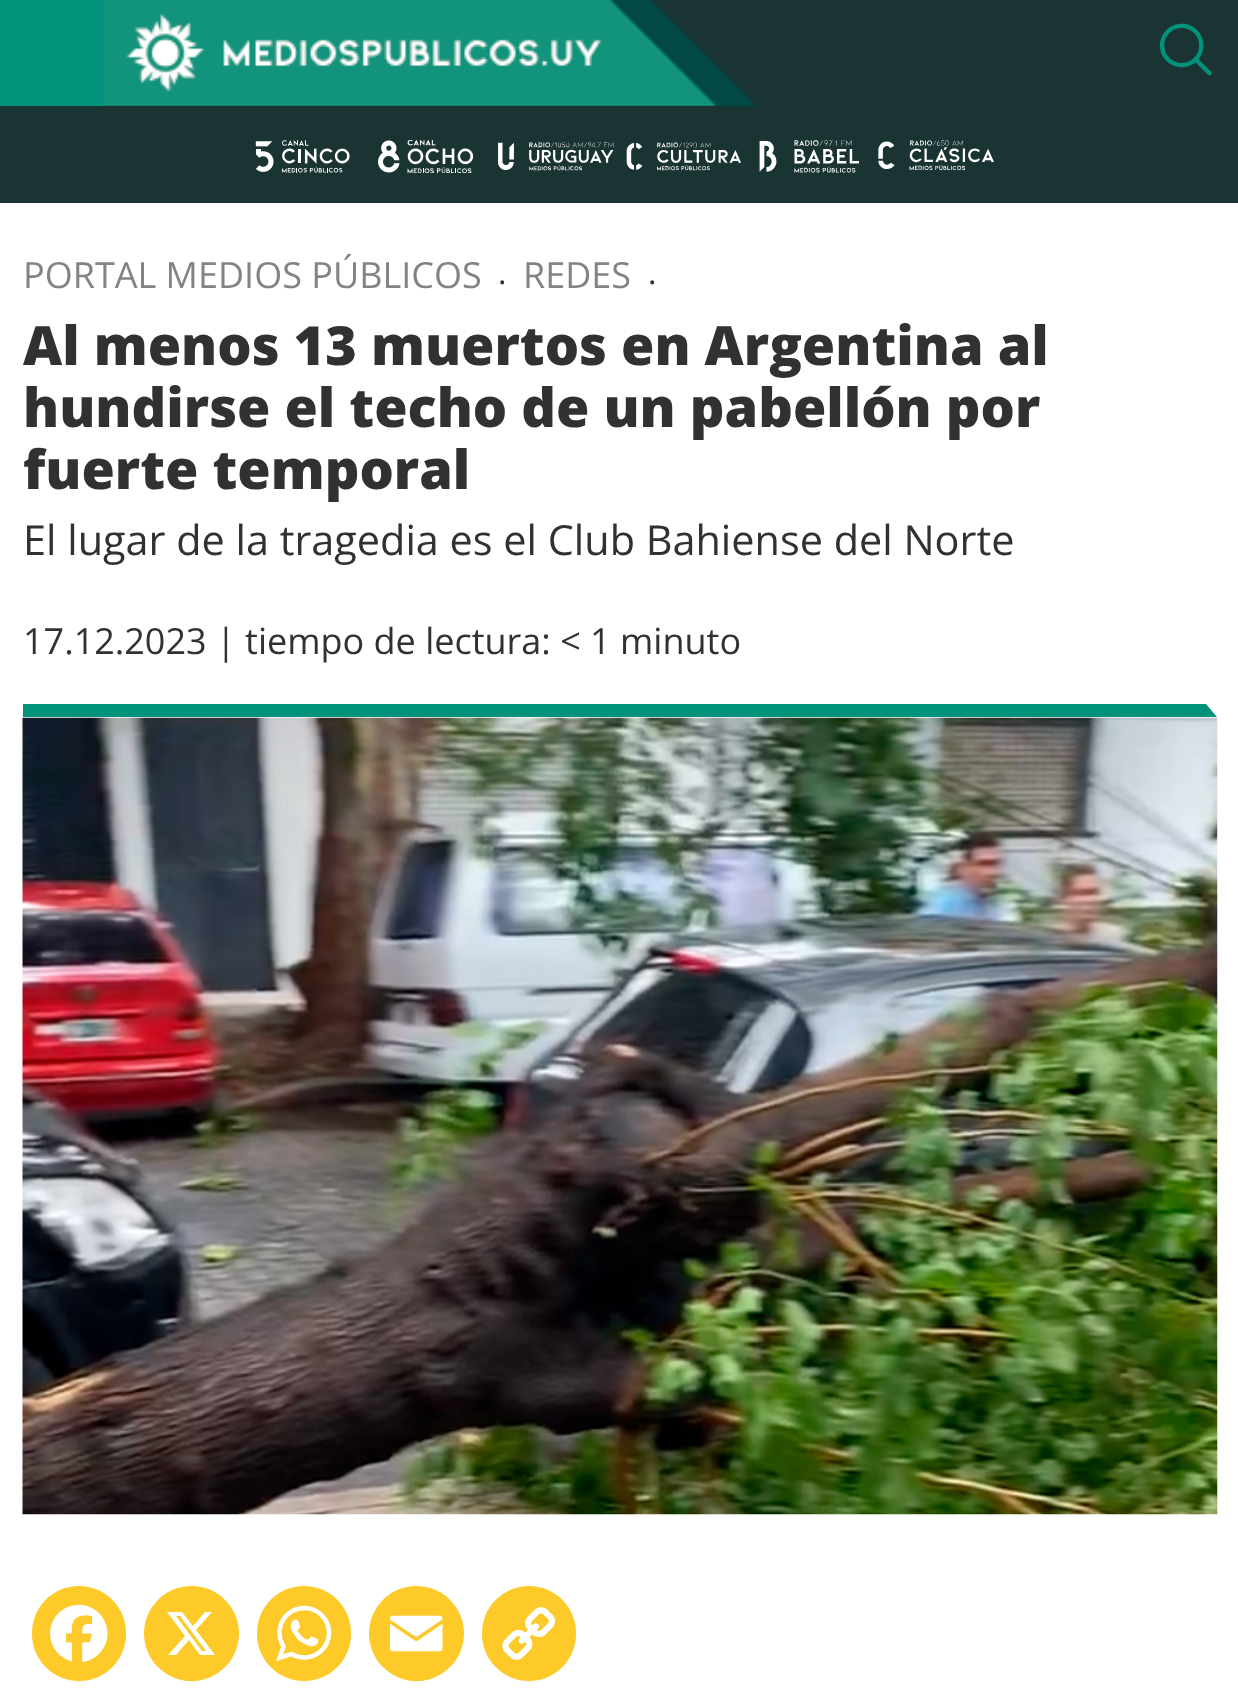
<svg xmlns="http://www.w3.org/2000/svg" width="1238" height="1688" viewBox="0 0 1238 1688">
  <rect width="100%" height="100%" fill="#ffffff"/>
  <rect x="0" y="0" width="1238" height="203" fill="#193432"/>
  <rect x="0" y="0" width="104" height="106" fill="#00927a"/>
  <image x="103" y="0" width="653" height="106" href="img1.png"/>
  <image x="1159" y="23" width="53" height="53" href="img2.png"/>
  <image x="255" y="140" width="95" height="33" href="img3.png"/>
  <image x="378" y="140" width="96" height="33" href="img4.png"/>
  <image x="498" y="142" width="116" height="29" href="img5.png"/>
  <image x="626" y="142" width="115" height="29" href="img6.png"/>
  <image x="759" y="140" width="100" height="33" href="img7.png"/>
  <image x="878" y="140" width="116" height="30" href="img8.png"/>
  <text x="23" y="288" font-family="Open Sans" font-size="36" fill="#838383">PORTAL MEDIOS PÚBLICOS</text>
  <text x="498" y="284" font-family="Open Sans" font-size="32" fill="#313131">.</text>
  <text x="523" y="288" font-family="Open Sans" font-size="36" fill="#838383">REDES</text>
  <text x="648" y="284" font-family="Open Sans" font-size="32" fill="#313131">.</text>
  <text x="23" y="365" font-family="Open Sans" font-size="54" font-weight="800" fill="#313131">Al menos 13 muertos en Argentina al</text>
  <text x="23" y="427" font-family="Open Sans" font-size="54" font-weight="800" fill="#313131">hundirse el techo de un pabellón por</text>
  <text x="23" y="489" font-family="Open Sans" font-size="54" font-weight="800" fill="#313131">fuerte temporal</text>
  <text x="23" y="555" font-family="Open Sans" font-size="41.4" fill="#313131">El lugar de la tragedia es el Club Bahiense del Norte</text>
  <text x="23" y="654" font-family="Open Sans" font-size="36" fill="#313131">17.12.2023 | tiempo de lectura: &lt; 1 minuto</text>
  <path d="M23 704V717H1217L1206 704Z" fill="#00927a"/>
  <image x="22" y="717" width="1196" height="798" href="img9.png"/>
  <rect x="32" y="1586" width="94" height="95" rx="47" fill="#fdca29"/>
  <image x="50" y="1604" width="58" height="58" href="img10.png"/>
  <circle cx="191.5" cy="1633.5" r="47.5" fill="#fdca29"/>
  <path d="M205 1612H212L196 1630L215 1655H200L189 1640L176 1655H168L185 1636L167 1612H182L193 1626ZM202 1651H206L180 1616H176Z" fill="#ffffff"/>
  <rect x="257" y="1586" width="94" height="95" rx="47" fill="#fdca29"/>
  <image x="276" y="1605" width="56" height="57" href="img11.png"/>
  <circle cx="416.5" cy="1633.5" r="47.5" fill="#fdca29"/>
  <image x="389" y="1615" width="54" height="37" href="img12.png"/>
  <rect x="482" y="1586" width="94" height="95" rx="47" fill="#fdca29"/>
  <image x="502" y="1607" width="54" height="53" href="img13.png"/>
</svg>
